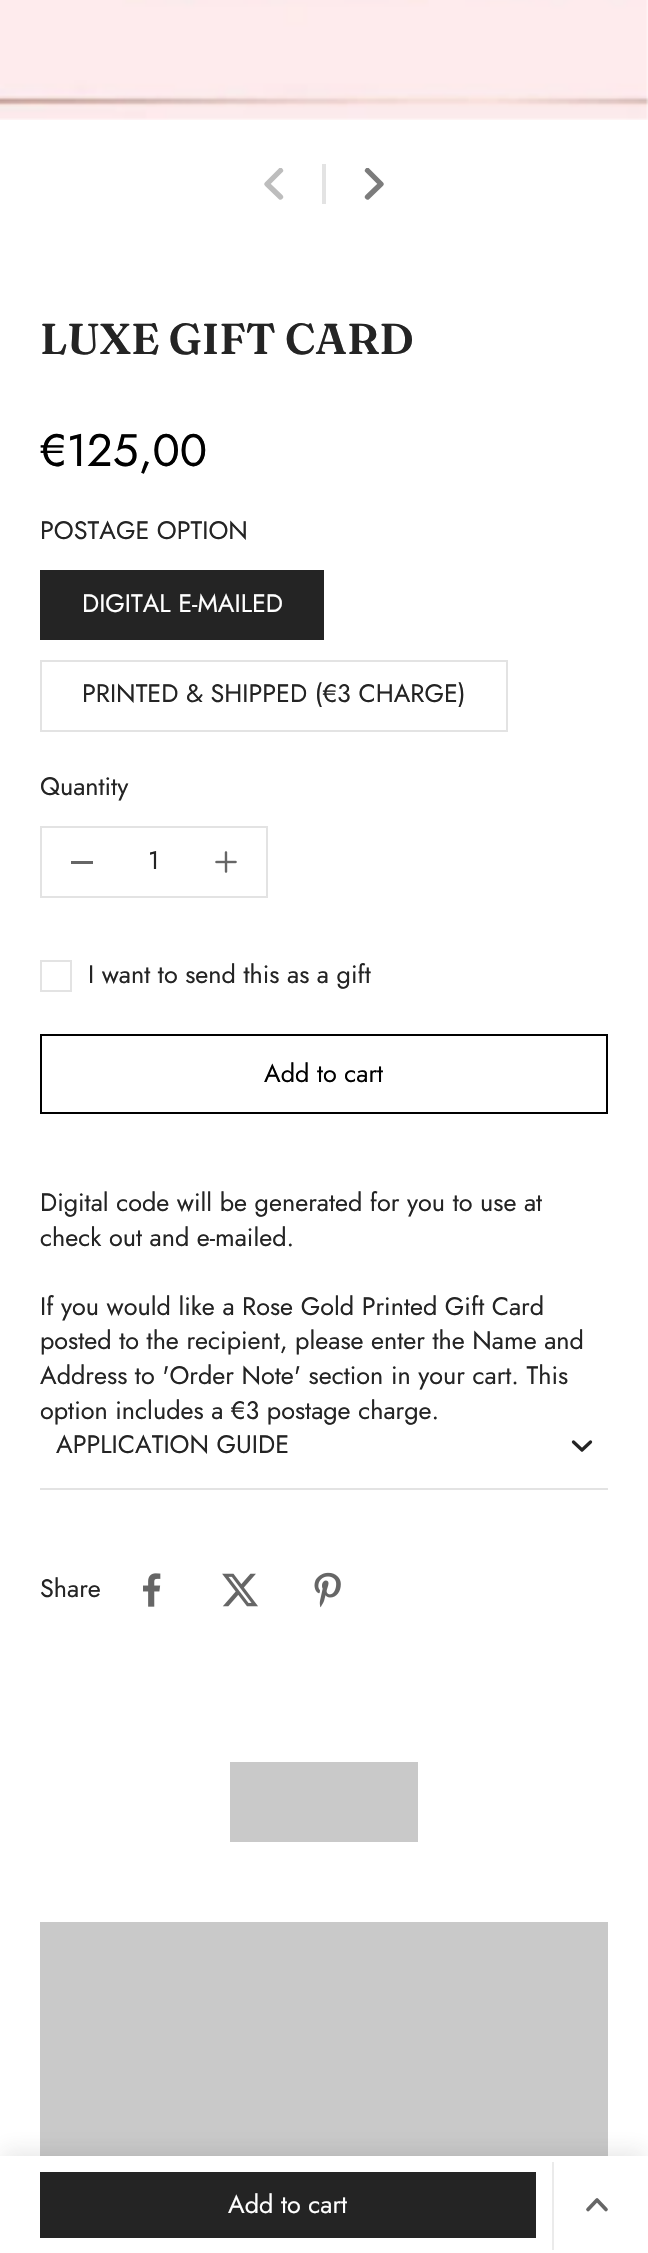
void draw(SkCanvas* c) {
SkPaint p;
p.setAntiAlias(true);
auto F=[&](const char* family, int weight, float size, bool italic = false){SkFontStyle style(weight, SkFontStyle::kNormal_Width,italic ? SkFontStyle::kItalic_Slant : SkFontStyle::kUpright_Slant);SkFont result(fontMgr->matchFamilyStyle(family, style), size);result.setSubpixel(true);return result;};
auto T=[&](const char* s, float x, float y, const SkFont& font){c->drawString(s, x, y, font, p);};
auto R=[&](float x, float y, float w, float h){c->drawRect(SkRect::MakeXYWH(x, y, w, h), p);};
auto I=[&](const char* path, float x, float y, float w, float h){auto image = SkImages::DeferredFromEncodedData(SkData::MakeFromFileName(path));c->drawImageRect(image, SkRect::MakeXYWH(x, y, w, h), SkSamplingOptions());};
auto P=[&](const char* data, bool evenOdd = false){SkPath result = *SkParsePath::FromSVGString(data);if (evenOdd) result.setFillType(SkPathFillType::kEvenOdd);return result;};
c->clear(0xffffffff);
I("1.png",0,0,648,120);
c->save();
c->clipPath(P("M290 168v32h-32v-32z"),true);
p.setStroke(true);
p.setStrokeWidth(5.3);
p.setStrokeCap(SkPaint::kRound_Cap);
p.setStrokeJoin(SkPaint::kRound_Join);
p.setColor(0xffbdbdbd);
c->drawPath(P("M280.5 170.5l-13.5 13.5l13.5 13"),p);
c->restore();
p.setStroke(false);
p.setColor(0xffe3e3e3);
R(322,164,4,40);
c->save();
c->clipPath(P("M358 200v-32h32v32z"),true);
p.setStroke(true);
p.setColor(0xff7c7c7c);
c->drawPath(P("M367.5 197l13.5-13l-13.5-13.5"),p);
c->restore();
auto f1 = F("Fraunces",600,43.25);
p.setStroke(false);
p.setColor(0xff242424);
T("LUXE GIFT CARD",40,354,f1);
auto f2 = F("Jost",400,45.5);
p.setColor(0xff000000);
T("€125,00",40,466,f2);
auto f3 = F("Jost",400,25.2);
p.setColor(0xff242424);
T("POSTAGE OPTION",40,539,f3);
R(40,570,284,70);
p.setColor(0xffffffff);
T("DIGITAL E-MAILED",82,612,f3);
p.setStroke(true);
p.setStrokeWidth(2);
p.setStrokeCap(SkPaint::kButt_Cap);
p.setStrokeJoin(SkPaint::kMiter_Join);
p.setColor(0xffe3e3e3);
c->drawRect(SkRect::MakeXYWH(41,661,466,70),p);
p.setStroke(false);
p.setColor(0xff242424);
T("PRINTED & SHIPPED (€3 CHARGE)",82,702,f3);
T("Quantity",40,795,f3);
p.setStroke(true);
p.setColor(0xffe3e3e3);
c->drawRect(SkRect::MakeXYWH(41,827,226,70),p);
p.setStroke(false);
p.setColor(0xff666666);
R(71,861,22,3);
p.setColor(0xff242424);
T("1",148,869,f3);
I("2.png",215,851,22,22);
p.setStroke(true);
p.setColor(0xffe3e3e3);
c->drawRect(SkRect::MakeXYWH(41,961,30,30),p);
p.setStroke(false);
p.setColor(0xff242424);
T("I want to send this as a gift",88,983,f3);
p.setStroke(true);
p.setColor(0xff000000);
c->drawRect(SkRect::MakeXYWH(41,1035,566,78),p);
p.setStroke(false);
T("Add to cart",264,1082,f3);
p.setColor(0xff242424);
T("Digital code will be generated for you to use at",40,1211,f3);
T("check out and e-mailed.",40,1246,f3);
T("If you would like a Rose Gold Printed Gift Card",40,1315,f3);
T("posted to the recipient, please enter the Name and",40,1349,f3);
T("Address to 'Order Note' section in your cart. This",40,1384,f3);
T("option includes a €3 postage charge.",40,1419,f3);
p.setColor(0xffe3e3e3);
R(40,1488,568,2);
p.setColor(0xff242424);
T("APPLICATION GUIDE",56,1453,f3);
p.setStroke(true);
p.setStrokeWidth(3.3);
p.setStrokeCap(SkPaint::kRound_Cap);
p.setStrokeJoin(SkPaint::kRound_Join);
c->drawPath(P("M573.5 1442l8.5 8l8.5-8"),p);
p.setStroke(false);
T("Share",40,1597,f3);
I("3.png",143,1573,18,34);
I("4.png",222,1573,36,34);
I("5.png",314,1572,27,36);
p.setColor(0xffc9c9c9);
R(40,1922,568,234);
p.setColor(0x1a242424);
p.setMaskFilter(SkMaskFilter::MakeBlur(kNormal_SkBlurStyle, 10));
c->drawRect(SkRect::MakeXYWH(2,2150,644,94),p);
p.setMaskFilter(nullptr);
p.setColor(0xffffffff);
R(0,2156,648,97);
p.setColor(0xff242424);
R(40,2172,496,66);
p.setColor(0xffffffff);
T("Add to cart",228,2213,f3);
p.setColor(0xffebebeb);
R(552,2162,2,88);
p.setStroke(true);
p.setStrokeWidth(3.7);
p.setColor(0xff666666);
c->drawPath(P("M606 2209.5l-9-9.5l-9 9.5"),p);
p.setStroke(false);
p.setColor(0xffc9c9c9);
R(230,1762,188,80);
}
